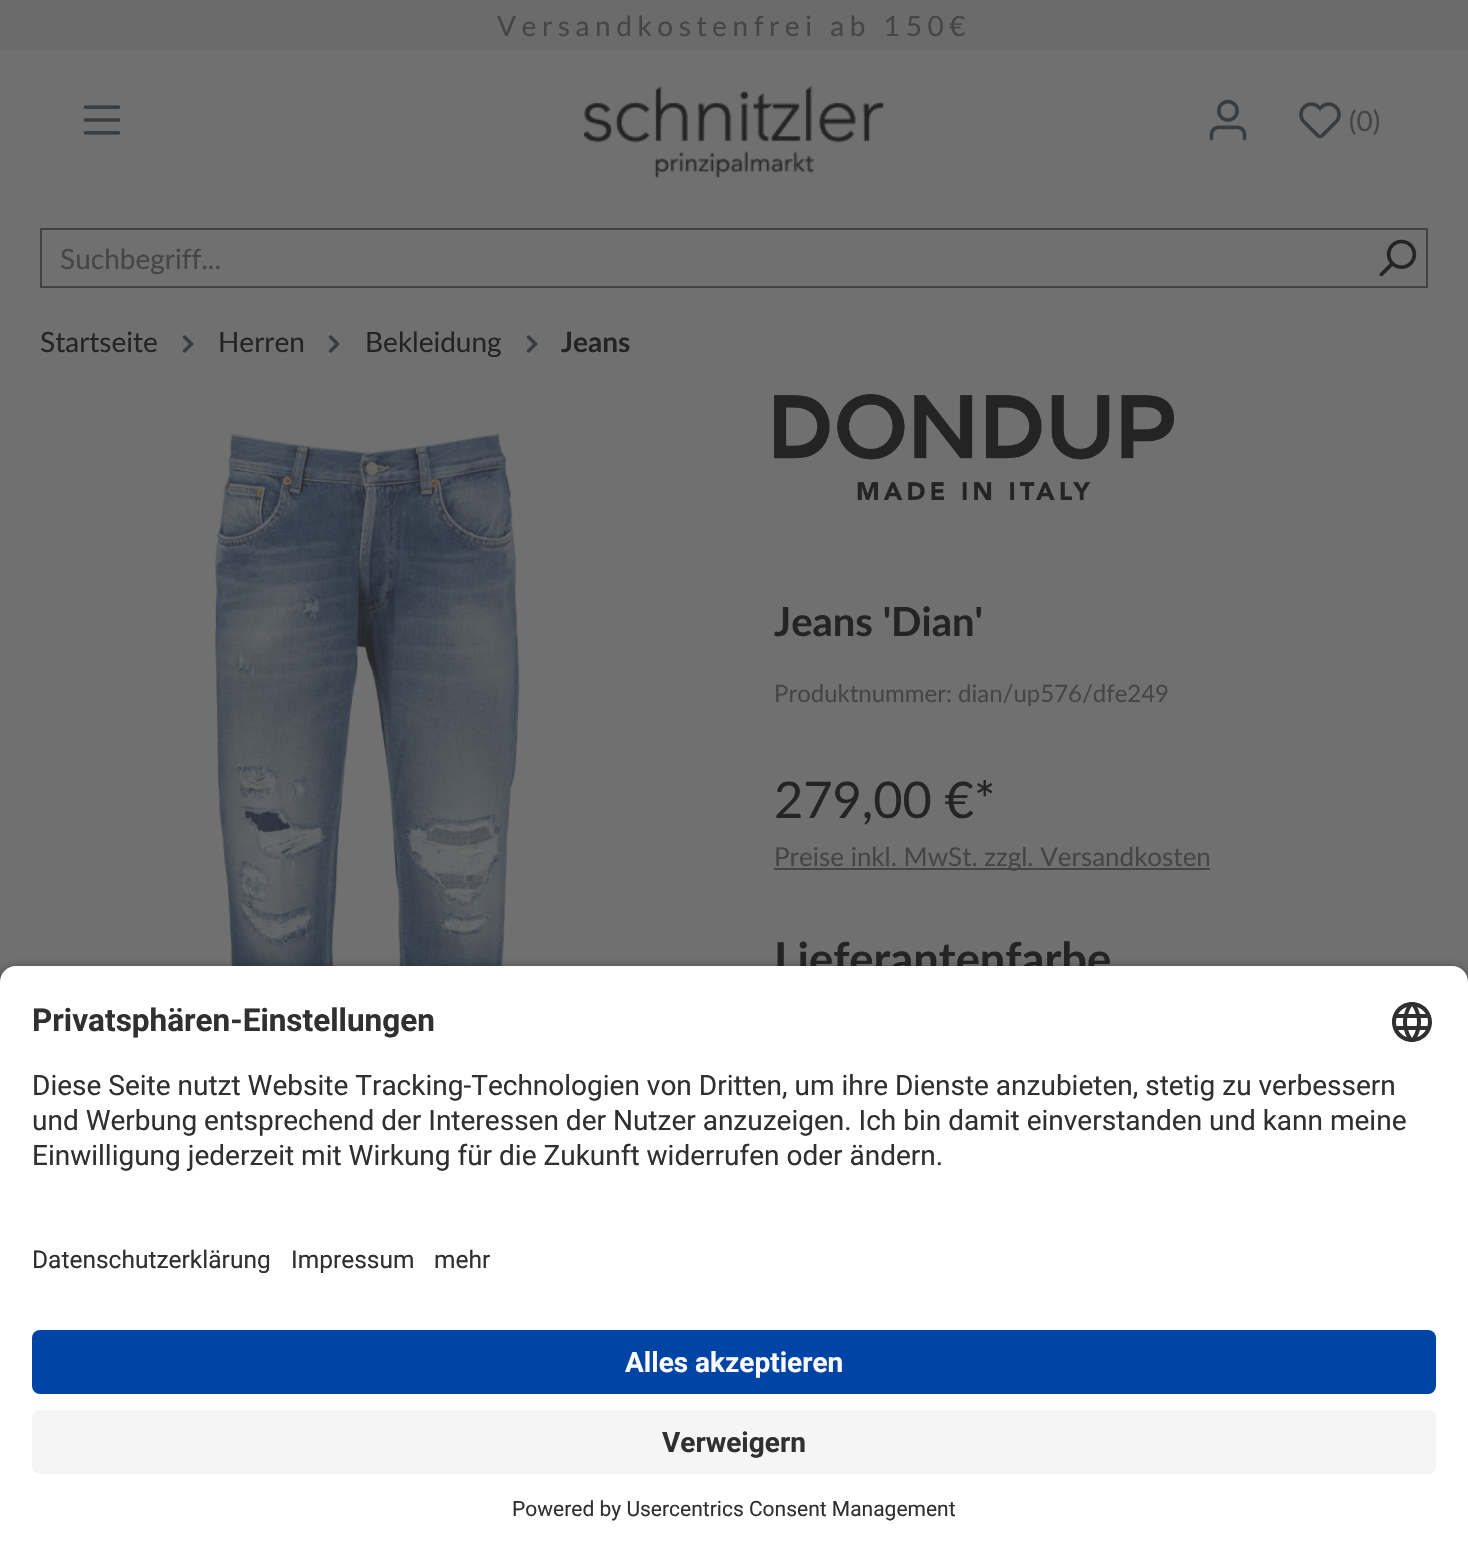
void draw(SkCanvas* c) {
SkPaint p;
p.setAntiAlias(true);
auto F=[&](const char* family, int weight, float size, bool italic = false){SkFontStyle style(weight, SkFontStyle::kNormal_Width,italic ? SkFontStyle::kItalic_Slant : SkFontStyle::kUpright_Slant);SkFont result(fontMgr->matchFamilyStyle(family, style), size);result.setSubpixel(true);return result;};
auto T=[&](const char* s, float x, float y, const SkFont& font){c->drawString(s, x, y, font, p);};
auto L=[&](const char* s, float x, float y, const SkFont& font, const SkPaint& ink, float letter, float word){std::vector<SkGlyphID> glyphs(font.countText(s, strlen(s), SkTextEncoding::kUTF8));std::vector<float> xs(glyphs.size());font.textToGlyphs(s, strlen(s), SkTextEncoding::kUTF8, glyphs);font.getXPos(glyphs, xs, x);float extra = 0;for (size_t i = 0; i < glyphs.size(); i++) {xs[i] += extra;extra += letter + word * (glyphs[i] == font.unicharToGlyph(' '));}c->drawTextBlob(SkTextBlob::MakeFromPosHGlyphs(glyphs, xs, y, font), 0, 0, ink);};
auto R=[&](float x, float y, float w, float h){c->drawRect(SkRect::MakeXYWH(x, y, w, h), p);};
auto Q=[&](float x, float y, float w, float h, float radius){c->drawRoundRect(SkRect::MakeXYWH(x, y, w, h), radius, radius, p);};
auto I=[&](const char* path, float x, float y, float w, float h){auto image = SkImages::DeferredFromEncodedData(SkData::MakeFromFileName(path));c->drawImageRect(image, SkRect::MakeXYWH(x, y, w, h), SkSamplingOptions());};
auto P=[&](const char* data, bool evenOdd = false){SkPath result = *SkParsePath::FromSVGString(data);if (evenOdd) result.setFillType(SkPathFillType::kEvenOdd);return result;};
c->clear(0xff707070);
p.setColor(0xff6b6b6b);
R(0,0,1468,50);
auto f1 = F("Lato",400,28);
p.setColor(0xff454545);
L("Versandkostenfrei ab 150€",497,36,f1,p,5.6,0);
I("1.png",584,82,300,96);
I("2.png",83,105,38,30);
I("3.png",1209,99,38,42);
I("4.png",1299,102,42,37);
T("(0)",1349,131,f1);
p.setColor(0xff424242);
R(40,228,1388,2);
R(40,286,1328,2);
R(40,228,2,60);
p.setColor(0xff454545);
T("Suchbegriff...",60,269,f1);
p.setColor(0xff424242);
R(1426,228,2,60);
R(1366,286,62,2);
I("5.png",1379,239,38,38);
p.setColor(0xff242424);
T("Startseite",40,352,f1);
I("6.png",182,335,12,18);
T("Herren",218,352,f1);
I("6.png",328,335,12,18);
T("Bekleidung",365,352,f1);
I("6.png",526,335,12,18);
auto f2 = F("Lato",700,28);
T("Jeans",561,352,f2);
I("7.png",214,432,306,534);
I("8.png",774,394,400,106);
auto f3 = F("Lato",700,40);
T("Jeans 'Dian'",774,636,f3);
auto f4 = F("Lato",400,24);
p.setColor(0xff454545);
T("Produktnummer: dian/up576/dfe249",774,702,f4);
auto f5 = F("Lato",400,50.5);
p.setColor(0xff242424);
T("279,00 €*",774,818,f5);
p.setColor(0xff454545);
R(774,868,436,2);
auto f6 = F("Lato",400,26);
T("Preise inkl. MwSt. zzgl. Versandkosten",774,866,f6);
auto f7 = F("Lato",700,45.25);
p.setColor(0xff242424);
T("Lieferantenfarbe",774,975,f7);
p.setColor(0xcc000000);
p.setMaskFilter(SkMaskFilter::MakeBlur(kNormal_SkBlurStyle, 7));
c->drawRoundRect(SkRect::MakeXYWH(0,972,1468,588),16,16,p);
p.setMaskFilter(nullptr);
p.setColor(0xffffffff);
c->drawPath(P("M16 966h1436c9 0 16 7 16 16v232h-1468v-232c0-9 7-16 16-16z"),p);
auto f8 = F("Roboto",700,31.5);
p.setColor(0xff303030);
T("Privatsphären-Einstellungen",32,1031,f8);
I("9.png",1392,1002,40,40);
auto f9 = F("Roboto",400,28);
T("Diese Seite nutzt Website Tracking-Technologien von Dritten, um ihre Dienste anzubieten, stetig zu verbessern",32,1095,f9);
T("und Werbung entsprechend der Interessen der Nutzer anzuzeigen. Ich bin damit einverstanden und kann meine",32,1130,f9);
T("Einwilligung jederzeit mit Wirkung für die Zukunft widerrufen oder ändern.",32,1165,f9);
p.setColor(0xffffffff);
R(0,1214,1468,340);
auto f10 = F("Roboto",400,24.5);
p.setColor(0xff303030);
T("Datenschutzerklärung",32,1268,f10);
T("Impressum",291,1268,f10);
T("mehr",434,1268,f10);
p.setColor(0xff0045a5);
Q(32,1330,1404,64,8);
auto f11 = F("Roboto",700,28);
p.setColor(0xfffafafa);
T("Alles akzeptieren",625,1372,f11);
p.setColor(0xfff5f5f5);
Q(32,1410,1404,64,8);
p.setColor(0xff303030);
T("Verweigern",662,1452,f11);
auto f12 = F("Roboto",400,21);
T("Powered by Usercentrics Consent Management",512,1516,f12);
}
